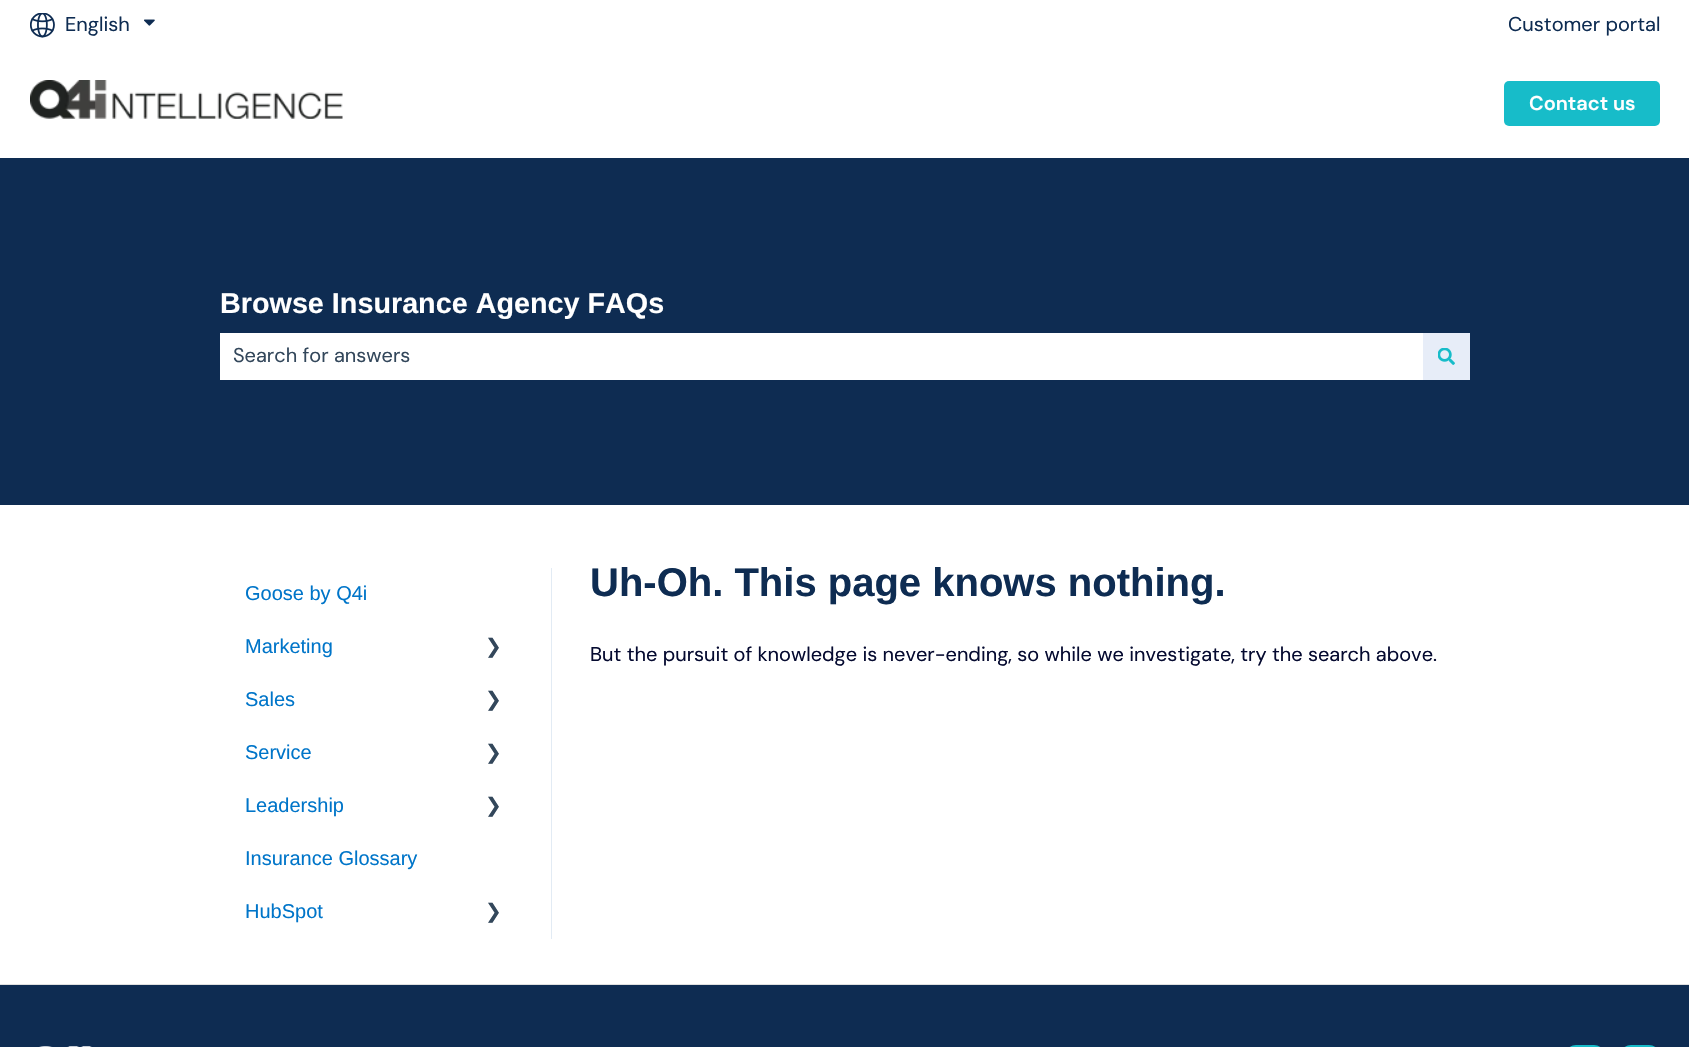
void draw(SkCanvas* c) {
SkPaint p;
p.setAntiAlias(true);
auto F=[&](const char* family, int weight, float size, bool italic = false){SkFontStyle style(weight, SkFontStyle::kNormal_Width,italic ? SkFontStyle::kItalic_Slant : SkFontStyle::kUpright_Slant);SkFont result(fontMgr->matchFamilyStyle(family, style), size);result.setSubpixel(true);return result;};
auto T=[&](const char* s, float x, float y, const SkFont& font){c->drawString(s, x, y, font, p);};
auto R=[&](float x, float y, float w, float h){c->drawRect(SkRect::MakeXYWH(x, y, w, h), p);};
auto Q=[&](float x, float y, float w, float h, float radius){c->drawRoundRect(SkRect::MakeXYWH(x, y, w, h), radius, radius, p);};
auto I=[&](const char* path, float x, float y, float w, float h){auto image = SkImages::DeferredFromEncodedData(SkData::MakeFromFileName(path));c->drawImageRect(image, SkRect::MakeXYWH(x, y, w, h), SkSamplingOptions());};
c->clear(0xffffffff);
I("1.png",30,13,25,25);
auto f1 = F("DM Sans",400,20);
p.setColor(0xff0e2c52);
T("English",65,31,f1);
I("2.png",144,19,11,7);
T("Customer portal",1508,31,f1);
I("3.png",30,80,313,39);
p.setColor(0xff17bcc9);
Q(1504,81,156,45,5);
auto f2 = F("DM Sans",600,20);
p.setColor(0xffffffff);
T("Contact us",1529,110,f2);
p.setColor(0xff0e2c52);
R(0,158,1689,347);
auto f3 = F("Liberation Sans",700,28.75);
p.setColor(0xffffffff);
T("Browse Insurance Agency FAQs",220,313,f3);
R(220,333,1203,47);
p.setColor(0xff33475b);
T("Search for answers",233,362,f1);
p.setColor(0xffe7edf8);
R(1423,333,47,47);
I("4.png",1438,348,17,17);
p.setColor(0xffe2ebf4);
R(551,568,1,371);
auto f4 = F("Liberation Sans",400,20);
p.setColor(0xff0075c9);
T("Goose by Q4i",245,600,f4);
T("Marketing",245,653,f4);
auto f5 = F("DejaVu Sans",400,20);
p.setColor(0xff33475b);
T("❯",485,653,f5);
p.setColor(0xff0075c9);
T("Sales",245,706,f4);
p.setColor(0xff33475b);
T("❯",485,706,f5);
p.setColor(0xff0075c9);
T("Service",245,759,f4);
p.setColor(0xff33475b);
T("❯",485,759,f5);
p.setColor(0xff0075c9);
T("Leadership",245,812,f4);
p.setColor(0xff33475b);
T("❯",485,812,f5);
p.setColor(0xff0075c9);
T("Insurance Glossary",245,865,f4);
T("HubSpot",245,918,f4);
p.setColor(0xff33475b);
T("❯",485,918,f5);
auto f6 = F("Liberation Sans",700,40);
p.setColor(0xff0e2c52);
T("Uh-Oh. This page knows nothing.",590,596,f6);
p.setColor(0xff050a30);
T("But the pursuit of knowledge is never-ending, so while we investigate, try the search above.",590,661,f1);
p.setColor(0xff0e2c52);
R(0,985,1689,62);
p.setColor(0xffe0e0e0);
R(0,984,1689,1);
I("5.png",39,1046,53,1);
p.setColor(0xff17bcc9);
Q(1565,1045,40,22,20);
Q(1620,1045,40,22,20);
}
